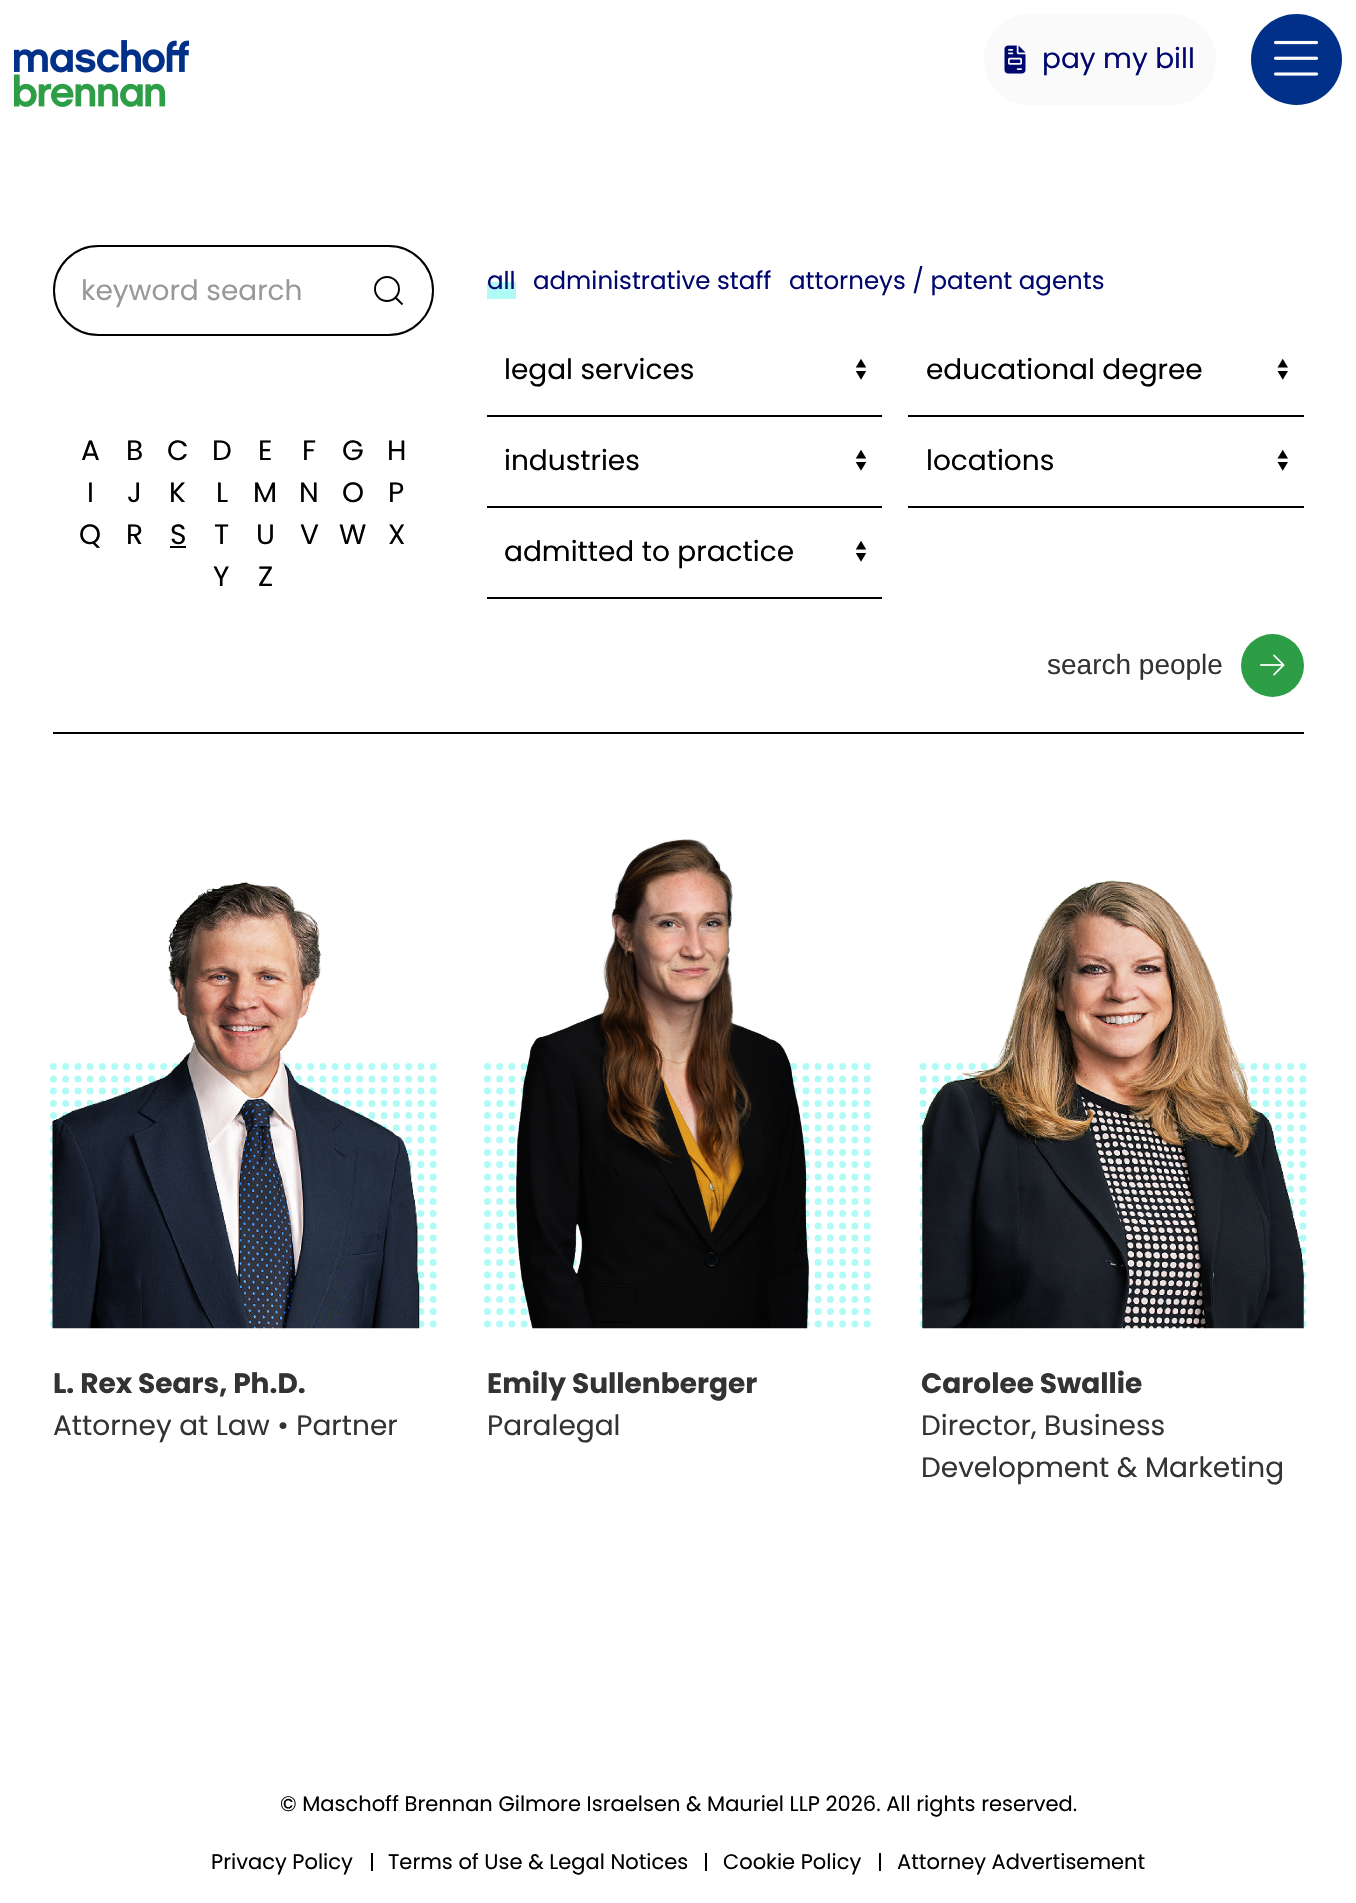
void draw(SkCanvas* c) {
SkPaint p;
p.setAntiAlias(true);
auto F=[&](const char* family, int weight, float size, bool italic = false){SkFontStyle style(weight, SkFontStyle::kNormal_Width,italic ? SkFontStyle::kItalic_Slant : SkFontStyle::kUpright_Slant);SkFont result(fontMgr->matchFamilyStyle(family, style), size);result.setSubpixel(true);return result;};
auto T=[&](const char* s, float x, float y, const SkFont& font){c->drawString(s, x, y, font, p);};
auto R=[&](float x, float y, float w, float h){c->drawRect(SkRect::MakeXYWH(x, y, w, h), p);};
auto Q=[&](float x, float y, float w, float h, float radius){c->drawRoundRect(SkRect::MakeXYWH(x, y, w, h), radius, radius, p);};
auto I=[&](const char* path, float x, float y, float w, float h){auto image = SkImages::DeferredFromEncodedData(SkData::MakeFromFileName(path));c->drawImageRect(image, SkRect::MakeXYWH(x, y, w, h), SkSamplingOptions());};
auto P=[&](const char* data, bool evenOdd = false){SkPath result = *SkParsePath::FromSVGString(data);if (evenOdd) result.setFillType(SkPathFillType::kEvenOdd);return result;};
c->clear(0xffffffff);
I("1.png",14,40,175,67);
p.setColor(0xfffafafa);
Q(984,14,232,91,45.5);
I("2.png",1004,45,22,29);
auto f1 = F("Poppins",400,28);
p.setColor(0xff00076e);
T("pay my bill",1042,68,f1);
p.setColor(0xff003087);
c->drawCircle(1296.5,59.5,45.5,p);
I("3.png",1274,40,45,36);
p.setStroke(true);
p.setStrokeWidth(2);
p.setColor(0xff000000);
c->drawRoundRect(SkRect::MakeXYWH(54,246,379,89),44.5,44.5,p);
p.setStroke(false);
p.setColor(0xff999999);
T("keyword search",81,300,f1);
p.setStroke(true);
p.setStrokeWidth(1.9);
p.setColor(0xff000000);
c->drawCircle(387,289,12,p);
c->drawPath(P("M395.5 297.5l7 7z"),p);
p.setStroke(false);
T("A",81,460,f1);
T("B",126,460,f1);
T("C",167,460,f1);
T("D",212,460,f1);
T("E",258,460,f1);
T("F",302,460,f1);
T("G",342,460,f1);
T("H",387,460,f1);
T("I",87,502,f1);
T("J",127,502,f1);
T("K",169,502,f1);
T("L",216,502,f1);
T("M",253,502,f1);
T("N",299,502,f1);
T("O",342,502,f1);
T("P",388,502,f1);
T("Q",79,544,f1);
T("R",126,544,f1);
T("S",170,544,f1);
R(170,546,16,2);
T("T",214,544,f1);
T("U",256,544,f1);
T("V",300,544,f1);
T("W",339,544,f1);
T("X",388,544,f1);
T("Y",213,586,f1);
T("Z",258,586,f1);
p.setColor(0xffb1fbf6);
R(487,282,29,17);
auto f2 = F("Poppins",400,24.5);
p.setColor(0xff00076e);
T("all",487,289,f2);
T("administrative staff",533,289,f2);
T("attorneys / patent agents",789,289,f2);
I("4.png",855,359,12,21);
p.setColor(0xff000000);
R(487,415,395,2);
T("legal services",504,379,f1);
I("4.png",855,450,12,21);
R(487,506,395,2);
T("industries",504,470,f1);
I("4.png",855,541,12,21);
R(487,597,395,2);
T("admitted to practice",504,561,f1);
I("5.png",1277,358,11,22);
R(908,415,396,2);
T("educational degree",926,379,f1);
I("5.png",1277,449,11,22);
R(908,506,396,2);
T("locations",926,470,f1);
auto f3 = F("Liberation Sans",400,28);
p.setColor(0xff333333);
T("search people",1047,674,f3);
p.setColor(0xff2e9e46);
c->drawCircle(1272.5,665.5,31.5,p);
I("6.png",1260,654,25,22);
p.setColor(0xff000000);
R(53,732,1251,2);
p.setStroke(true);
p.setStrokeWidth(7);
p.setStrokeCap(SkPaint::kRound_Cap);
p.setColor(0xffb1fbf6);
p.setPathEffect(SkDashPathEffect::Make({{0,12.25f}}, 0));
c->drawPath(P("M53.4 1066.6h380.1"),p);
p.setPathEffect(nullptr);
p.setPathEffect(SkDashPathEffect::Make({{0,12.25f}}, 0));
c->drawPath(P("M53.4 1078.9h380.1"),p);
p.setPathEffect(nullptr);
p.setPathEffect(SkDashPathEffect::Make({{0,12.25f}}, 0));
c->drawPath(P("M53.4 1091.1h380.1"),p);
p.setPathEffect(nullptr);
p.setPathEffect(SkDashPathEffect::Make({{0,12.25f}}, 0));
c->drawPath(P("M53.4 1103.4h380.1"),p);
p.setPathEffect(nullptr);
p.setPathEffect(SkDashPathEffect::Make({{0,12.25f}}, 0));
c->drawPath(P("M53.4 1115.6h380.1"),p);
p.setPathEffect(nullptr);
p.setPathEffect(SkDashPathEffect::Make({{0,12.25f}}, 0));
c->drawPath(P("M53.4 1127.9h380.1"),p);
p.setPathEffect(nullptr);
p.setPathEffect(SkDashPathEffect::Make({{0,12.25f}}, 0));
c->drawPath(P("M53.4 1140.1h380.1"),p);
p.setPathEffect(nullptr);
p.setPathEffect(SkDashPathEffect::Make({{0,12.25f}}, 0));
c->drawPath(P("M53.4 1152.4h380.1"),p);
p.setPathEffect(nullptr);
p.setPathEffect(SkDashPathEffect::Make({{0,12.25f}}, 0));
c->drawPath(P("M53.4 1164.6h380.1"),p);
p.setPathEffect(nullptr);
p.setPathEffect(SkDashPathEffect::Make({{0,12.25f}}, 0));
c->drawPath(P("M53.4 1176.9h380.1"),p);
p.setPathEffect(nullptr);
p.setPathEffect(SkDashPathEffect::Make({{0,12.25f}}, 0));
c->drawPath(P("M53.4 1189.1h380.1"),p);
p.setPathEffect(nullptr);
p.setPathEffect(SkDashPathEffect::Make({{0,12.25f}}, 0));
c->drawPath(P("M53.4 1201.4h380.1"),p);
p.setPathEffect(nullptr);
p.setPathEffect(SkDashPathEffect::Make({{0,12.25f}}, 0));
c->drawPath(P("M53.4 1213.6h380.1"),p);
p.setPathEffect(nullptr);
p.setPathEffect(SkDashPathEffect::Make({{0,12.25f}}, 0));
c->drawPath(P("M53.4 1225.9h380.1"),p);
p.setPathEffect(nullptr);
p.setPathEffect(SkDashPathEffect::Make({{0,12.25f}}, 0));
c->drawPath(P("M53.4 1238.1h380.1"),p);
p.setPathEffect(nullptr);
p.setPathEffect(SkDashPathEffect::Make({{0,12.25f}}, 0));
c->drawPath(P("M53.4 1250.4h380.1"),p);
p.setPathEffect(nullptr);
p.setPathEffect(SkDashPathEffect::Make({{0,12.25f}}, 0));
c->drawPath(P("M53.4 1262.6h380.1"),p);
p.setPathEffect(nullptr);
p.setPathEffect(SkDashPathEffect::Make({{0,12.25f}}, 0));
c->drawPath(P("M53.4 1274.9h380.1"),p);
p.setPathEffect(nullptr);
p.setPathEffect(SkDashPathEffect::Make({{0,12.25f}}, 0));
c->drawPath(P("M53.4 1287.1h380.1"),p);
p.setPathEffect(nullptr);
p.setPathEffect(SkDashPathEffect::Make({{0,12.25f}}, 0));
c->drawPath(P("M53.4 1299.4h380.1"),p);
p.setPathEffect(nullptr);
p.setPathEffect(SkDashPathEffect::Make({{0,12.25f}}, 0));
c->drawPath(P("M53.4 1311.6h380.1"),p);
p.setPathEffect(nullptr);
p.setPathEffect(SkDashPathEffect::Make({{0,12.25f}}, 0));
c->drawPath(P("M53.4 1323.9h380.1"),p);
p.setPathEffect(nullptr);
I("7.png",52,882,368,447);
auto f4 = F("Poppins",700,28);
p.setStroke(false);
p.setColor(0xff333333);
T("L. Rex Sears, Ph.D.",53,1393,f4);
T("Attorney at Law • Partner",53,1435,f1);
p.setStroke(true);
p.setColor(0xffb1fbf6);
p.setPathEffect(SkDashPathEffect::Make({{0,12.25f}}, 0));
c->drawPath(P("M487.4 1066.6h380.1"),p);
p.setPathEffect(nullptr);
p.setPathEffect(SkDashPathEffect::Make({{0,12.25f}}, 0));
c->drawPath(P("M487.4 1078.9h380.1"),p);
p.setPathEffect(nullptr);
p.setPathEffect(SkDashPathEffect::Make({{0,12.25f}}, 0));
c->drawPath(P("M487.4 1091.1h380.1"),p);
p.setPathEffect(nullptr);
p.setPathEffect(SkDashPathEffect::Make({{0,12.25f}}, 0));
c->drawPath(P("M487.4 1103.4h380.1"),p);
p.setPathEffect(nullptr);
p.setPathEffect(SkDashPathEffect::Make({{0,12.25f}}, 0));
c->drawPath(P("M487.4 1115.6h380.1"),p);
p.setPathEffect(nullptr);
p.setPathEffect(SkDashPathEffect::Make({{0,12.25f}}, 0));
c->drawPath(P("M487.4 1127.9h380.1"),p);
p.setPathEffect(nullptr);
p.setPathEffect(SkDashPathEffect::Make({{0,12.25f}}, 0));
c->drawPath(P("M487.4 1140.1h380.1"),p);
p.setPathEffect(nullptr);
p.setPathEffect(SkDashPathEffect::Make({{0,12.25f}}, 0));
c->drawPath(P("M487.4 1152.4h380.1"),p);
p.setPathEffect(nullptr);
p.setPathEffect(SkDashPathEffect::Make({{0,12.25f}}, 0));
c->drawPath(P("M487.4 1164.6h380.1"),p);
p.setPathEffect(nullptr);
p.setPathEffect(SkDashPathEffect::Make({{0,12.25f}}, 0));
c->drawPath(P("M487.4 1176.9h380.1"),p);
p.setPathEffect(nullptr);
p.setPathEffect(SkDashPathEffect::Make({{0,12.25f}}, 0));
c->drawPath(P("M487.4 1189.1h380.1"),p);
p.setPathEffect(nullptr);
p.setPathEffect(SkDashPathEffect::Make({{0,12.25f}}, 0));
c->drawPath(P("M487.4 1201.4h380.1"),p);
p.setPathEffect(nullptr);
p.setPathEffect(SkDashPathEffect::Make({{0,12.25f}}, 0));
c->drawPath(P("M487.4 1213.6h380.1"),p);
p.setPathEffect(nullptr);
p.setPathEffect(SkDashPathEffect::Make({{0,12.25f}}, 0));
c->drawPath(P("M487.4 1225.9h380.1"),p);
p.setPathEffect(nullptr);
p.setPathEffect(SkDashPathEffect::Make({{0,12.25f}}, 0));
c->drawPath(P("M487.4 1238.1h380.1"),p);
p.setPathEffect(nullptr);
p.setPathEffect(SkDashPathEffect::Make({{0,12.25f}}, 0));
c->drawPath(P("M487.4 1250.4h380.1"),p);
p.setPathEffect(nullptr);
p.setPathEffect(SkDashPathEffect::Make({{0,12.25f}}, 0));
c->drawPath(P("M487.4 1262.6h380.1"),p);
p.setPathEffect(nullptr);
p.setPathEffect(SkDashPathEffect::Make({{0,12.25f}}, 0));
c->drawPath(P("M487.4 1274.9h380.1"),p);
p.setPathEffect(nullptr);
p.setPathEffect(SkDashPathEffect::Make({{0,12.25f}}, 0));
c->drawPath(P("M487.4 1287.1h380.1"),p);
p.setPathEffect(nullptr);
p.setPathEffect(SkDashPathEffect::Make({{0,12.25f}}, 0));
c->drawPath(P("M487.4 1299.4h380.1"),p);
p.setPathEffect(nullptr);
p.setPathEffect(SkDashPathEffect::Make({{0,12.25f}}, 0));
c->drawPath(P("M487.4 1311.6h380.1"),p);
p.setPathEffect(nullptr);
p.setPathEffect(SkDashPathEffect::Make({{0,12.25f}}, 0));
c->drawPath(P("M487.4 1323.9h380.1"),p);
p.setPathEffect(nullptr);
I("8.png",516,839,293,490);
p.setStroke(false);
p.setColor(0xff333333);
T("Emily Sullenberger",487,1393,f4);
T("Paralegal",487,1435,f1);
p.setStroke(true);
p.setColor(0xffb1fbf6);
p.setPathEffect(SkDashPathEffect::Make({{0,12.25f}}, 0));
c->drawPath(P("M923.1 1066.6h380.1"),p);
p.setPathEffect(nullptr);
p.setPathEffect(SkDashPathEffect::Make({{0,12.25f}}, 0));
c->drawPath(P("M923.1 1078.9h380.1"),p);
p.setPathEffect(nullptr);
p.setPathEffect(SkDashPathEffect::Make({{0,12.25f}}, 0));
c->drawPath(P("M923.1 1091.1h380.1"),p);
p.setPathEffect(nullptr);
p.setPathEffect(SkDashPathEffect::Make({{0,12.25f}}, 0));
c->drawPath(P("M923.1 1103.4h380.1"),p);
p.setPathEffect(nullptr);
p.setPathEffect(SkDashPathEffect::Make({{0,12.25f}}, 0));
c->drawPath(P("M923.1 1115.6h380.1"),p);
p.setPathEffect(nullptr);
p.setPathEffect(SkDashPathEffect::Make({{0,12.25f}}, 0));
c->drawPath(P("M923.1 1127.9h380.1"),p);
p.setPathEffect(nullptr);
p.setPathEffect(SkDashPathEffect::Make({{0,12.25f}}, 0));
c->drawPath(P("M923.1 1140.1h380.1"),p);
p.setPathEffect(nullptr);
p.setPathEffect(SkDashPathEffect::Make({{0,12.25f}}, 0));
c->drawPath(P("M923.1 1152.4h380.1"),p);
p.setPathEffect(nullptr);
p.setPathEffect(SkDashPathEffect::Make({{0,12.25f}}, 0));
c->drawPath(P("M923.1 1164.6h380.1"),p);
p.setPathEffect(nullptr);
p.setPathEffect(SkDashPathEffect::Make({{0,12.25f}}, 0));
c->drawPath(P("M923.1 1176.9h380.1"),p);
p.setPathEffect(nullptr);
p.setPathEffect(SkDashPathEffect::Make({{0,12.25f}}, 0));
c->drawPath(P("M923.1 1189.1h380.1"),p);
p.setPathEffect(nullptr);
p.setPathEffect(SkDashPathEffect::Make({{0,12.25f}}, 0));
c->drawPath(P("M923.1 1201.4h380.1"),p);
p.setPathEffect(nullptr);
p.setPathEffect(SkDashPathEffect::Make({{0,12.25f}}, 0));
c->drawPath(P("M923.1 1213.6h380.1"),p);
p.setPathEffect(nullptr);
p.setPathEffect(SkDashPathEffect::Make({{0,12.25f}}, 0));
c->drawPath(P("M923.1 1225.9h380.1"),p);
p.setPathEffect(nullptr);
p.setPathEffect(SkDashPathEffect::Make({{0,12.25f}}, 0));
c->drawPath(P("M923.1 1238.1h380.1"),p);
p.setPathEffect(nullptr);
p.setPathEffect(SkDashPathEffect::Make({{0,12.25f}}, 0));
c->drawPath(P("M923.1 1250.4h380.1"),p);
p.setPathEffect(nullptr);
p.setPathEffect(SkDashPathEffect::Make({{0,12.25f}}, 0));
c->drawPath(P("M923.1 1262.6h380.1"),p);
p.setPathEffect(nullptr);
p.setPathEffect(SkDashPathEffect::Make({{0,12.25f}}, 0));
c->drawPath(P("M923.1 1274.9h380.1"),p);
p.setPathEffect(nullptr);
p.setPathEffect(SkDashPathEffect::Make({{0,12.25f}}, 0));
c->drawPath(P("M923.1 1287.1h380.1"),p);
p.setPathEffect(nullptr);
p.setPathEffect(SkDashPathEffect::Make({{0,12.25f}}, 0));
c->drawPath(P("M923.1 1299.4h380.1"),p);
p.setPathEffect(nullptr);
p.setPathEffect(SkDashPathEffect::Make({{0,12.25f}}, 0));
c->drawPath(P("M923.1 1311.6h380.1"),p);
p.setPathEffect(nullptr);
p.setPathEffect(SkDashPathEffect::Make({{0,12.25f}}, 0));
c->drawPath(P("M923.1 1323.9h380.1"),p);
p.setPathEffect(nullptr);
I("9.png",922,880,382,449);
p.setStroke(false);
p.setColor(0xff333333);
T("Carolee Swallie",921,1393,f4);
T("Director, Business",921,1435,f1);
T("Development & Marketing",921,1477,f1);
auto f5 = F("Poppins",400,21);
p.setColor(0xff000000);
T("© Maschoff Brennan Gilmore Israelsen & Mauriel LLP 2026. All rights reserved.",280,1811,f5);
T("Privacy Policy",211,1869,f5);
R(371,1853,2,18);
T("Terms of Use & Legal Notices",388,1869,f5);
R(705,1853,2,18);
T("Cookie Policy",723,1869,f5);
R(879,1853,2,18);
T("Attorney Advertisement",897,1869,f5);
}
